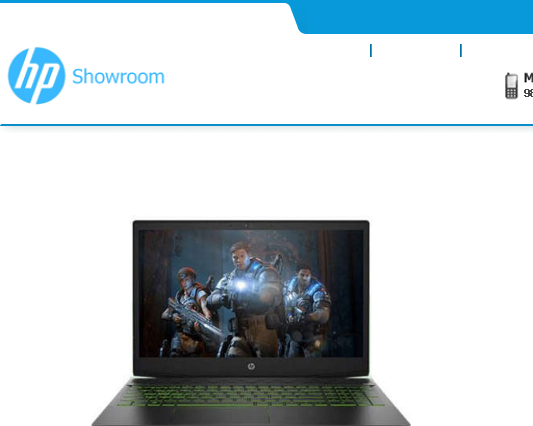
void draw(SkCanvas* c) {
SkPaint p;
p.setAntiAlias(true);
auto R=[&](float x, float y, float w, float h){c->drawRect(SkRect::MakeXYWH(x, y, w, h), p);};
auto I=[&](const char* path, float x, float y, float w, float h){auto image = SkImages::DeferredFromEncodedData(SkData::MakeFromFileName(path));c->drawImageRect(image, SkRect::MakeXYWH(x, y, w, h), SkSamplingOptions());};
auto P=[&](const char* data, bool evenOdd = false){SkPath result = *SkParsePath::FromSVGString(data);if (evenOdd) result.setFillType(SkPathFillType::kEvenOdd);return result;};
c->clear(0xffffffff);
p.setColor(0xff0899da);
R(0,0,282,3);
R(307,0,226,34);
I("1.png",282,0,25,34);
I("2.png",370,44,2,13);
I("2.png",460,44,2,13);
I("3.png",7,47,158,58);
I("4.png",505,72,28,28);
c->drawPath(P("M2 124h531c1 0 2 1 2 2h-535c0-1 1-2 2-2z"),p);
I("5.png",0,124,533,2);
I("6.png",0,126,533,7);
I("7.png",91,215,320,211);
}
